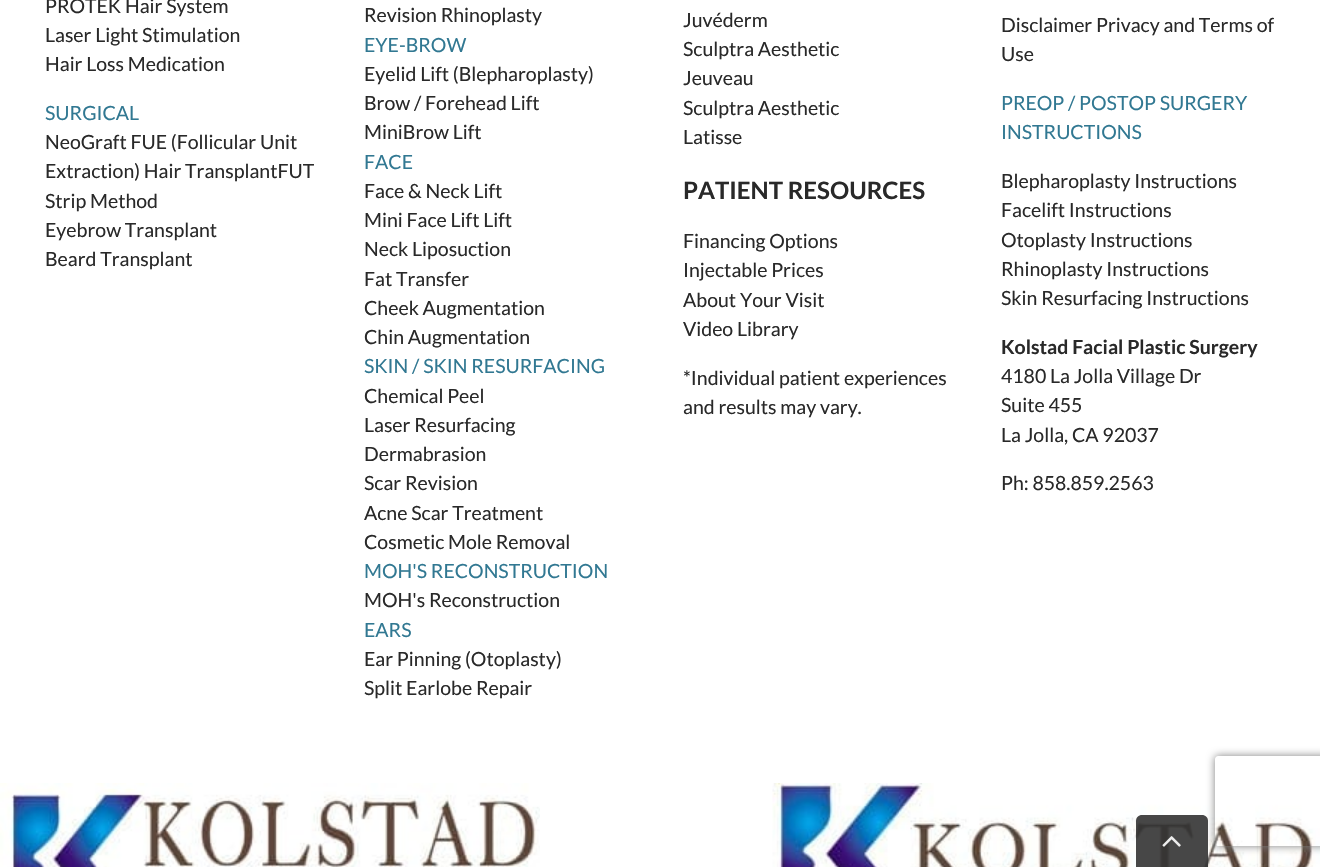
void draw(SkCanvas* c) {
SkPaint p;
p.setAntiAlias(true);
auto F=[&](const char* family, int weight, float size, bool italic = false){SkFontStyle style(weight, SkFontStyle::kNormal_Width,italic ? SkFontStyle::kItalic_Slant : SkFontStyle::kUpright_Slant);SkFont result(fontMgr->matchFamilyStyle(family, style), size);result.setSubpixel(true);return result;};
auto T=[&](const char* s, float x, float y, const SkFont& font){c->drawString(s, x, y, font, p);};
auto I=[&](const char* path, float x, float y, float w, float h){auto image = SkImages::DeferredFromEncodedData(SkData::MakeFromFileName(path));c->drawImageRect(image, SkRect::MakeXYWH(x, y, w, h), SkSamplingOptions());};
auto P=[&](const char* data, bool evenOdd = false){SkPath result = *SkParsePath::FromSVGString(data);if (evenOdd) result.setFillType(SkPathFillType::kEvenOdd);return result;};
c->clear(0xffffffff);
auto f1 = F("Lato",400,19.5);
p.setColor(0xff292929);
T("PROTEK Hair System",45,13,f1);
T("Laser Light Stimulation",45,42,f1);
T("Hair Loss Medication",45,71,f1);
p.setColor(0xff317892);
T("SURGICAL",45,120,f1);
p.setColor(0xff292929);
T("NeoGraft FUE (Follicular Unit",45,149,f1);
T("Extraction) Hair TransplantFUT",45,178,f1);
T("Strip Method",45,208,f1);
T("Eyebrow Transplant",45,237,f1);
T("Beard Transplant",45,266,f1);
T("Revision Rhinoplasty",364,22,f1);
p.setColor(0xff317892);
T("EYE-BROW",364,52,f1);
p.setColor(0xff292929);
T("Eyelid Lift (Blepharoplasty)",364,81,f1);
T("Brow / Forehead Lift",364,110,f1);
T("MiniBrow Lift",364,139,f1);
p.setColor(0xff317892);
T("FACE",364,169,f1);
p.setColor(0xff292929);
T("Face & Neck Lift",364,198,f1);
T("Mini Face Lift Lift",364,227,f1);
T("Neck Liposuction",364,256,f1);
T("Fat Transfer",364,286,f1);
T("Cheek Augmentation",364,315,f1);
T("Chin Augmentation",364,344,f1);
p.setColor(0xff317892);
T("SKIN / SKIN RESURFACING",364,373,f1);
p.setColor(0xff292929);
T("Chemical Peel",364,403,f1);
T("Laser Resurfacing",364,432,f1);
T("Dermabrasion",364,461,f1);
T("Scar Revision",364,490,f1);
T("Acne Scar Treatment",364,520,f1);
T("Cosmetic Mole Removal",364,549,f1);
p.setColor(0xff317892);
T("MOH'S RECONSTRUCTION",364,578,f1);
p.setColor(0xff292929);
T("MOH's Reconstruction",364,607,f1);
p.setColor(0xff317892);
T("EARS",364,637,f1);
p.setColor(0xff292929);
T("Ear Pinning (Otoplasty)",364,666,f1);
T("Split Earlobe Repair",364,695,f1);
T("Juvéderm",683,27,f1);
T("Sculptra Aesthetic",683,56,f1);
T("Jeuveau",683,85,f1);
T("Sculptra Aesthetic",683,115,f1);
T("Latisse",683,144,f1);
auto f2 = F("Lato",700,24);
T("PATIENT RESOURCES",683,199,f2);
T("Financing Options",683,248,f1);
T("Injectable Prices",683,277,f1);
T("About Your Visit",683,307,f1);
T("Video Library",683,336,f1);
T("*Individual patient experiences",683,385,f1);
T("and results may vary.",683,414,f1);
T("Disclaimer Privacy and Terms of",1001,32,f1);
T("Use",1001,61,f1);
p.setColor(0xff317892);
T("PREOP / POSTOP SURGERY",1001,110,f1);
T("INSTRUCTIONS",1001,139,f1);
p.setColor(0xff292929);
T("Blepharoplasty Instructions",1001,188,f1);
T("Facelift Instructions",1001,217,f1);
T("Otoplasty Instructions",1001,247,f1);
T("Rhinoplasty Instructions",1001,276,f1);
T("Skin Resurfacing Instructions",1001,305,f1);
auto f3 = F("Lato",700,19.5);
T("Kolstad Facial Plastic Surgery",1001,354,f3);
T("4180 La Jolla Village Dr",1001,383,f1);
T("Suite 455",1001,412,f1);
T("La Jolla, CA 92037",1001,442,f1);
T("Ph: 858.859.2563",1001,490,f1);
I("2.png",772,783,548,84);
c->save();
c->clipPath(P("M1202 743h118v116h-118zm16 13h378c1.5 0 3 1.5 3 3v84c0 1.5-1.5 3-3 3h-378c-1.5 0-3-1.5-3-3v-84c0-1.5 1.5-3 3-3z",true),true);
p.setColor(0xff808080);
p.setMaskFilter(SkMaskFilter::MakeBlur(kNormal_SkBlurStyle, 4));
c->drawRoundRect(SkRect::MakeXYWH(1215,756,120,90),3,3,p);
p.setMaskFilter(nullptr);
c->restore();
I("1.png",0,783,540,84);
p.setColor(0xe6333333);
c->drawPath(P("M1142 815h60c3.5 0 6 2.5 6 6v46h-72v-46c0-3.5 2.5-6 6-6z"),p);
I("3.png",1162,836,19,11);
}
